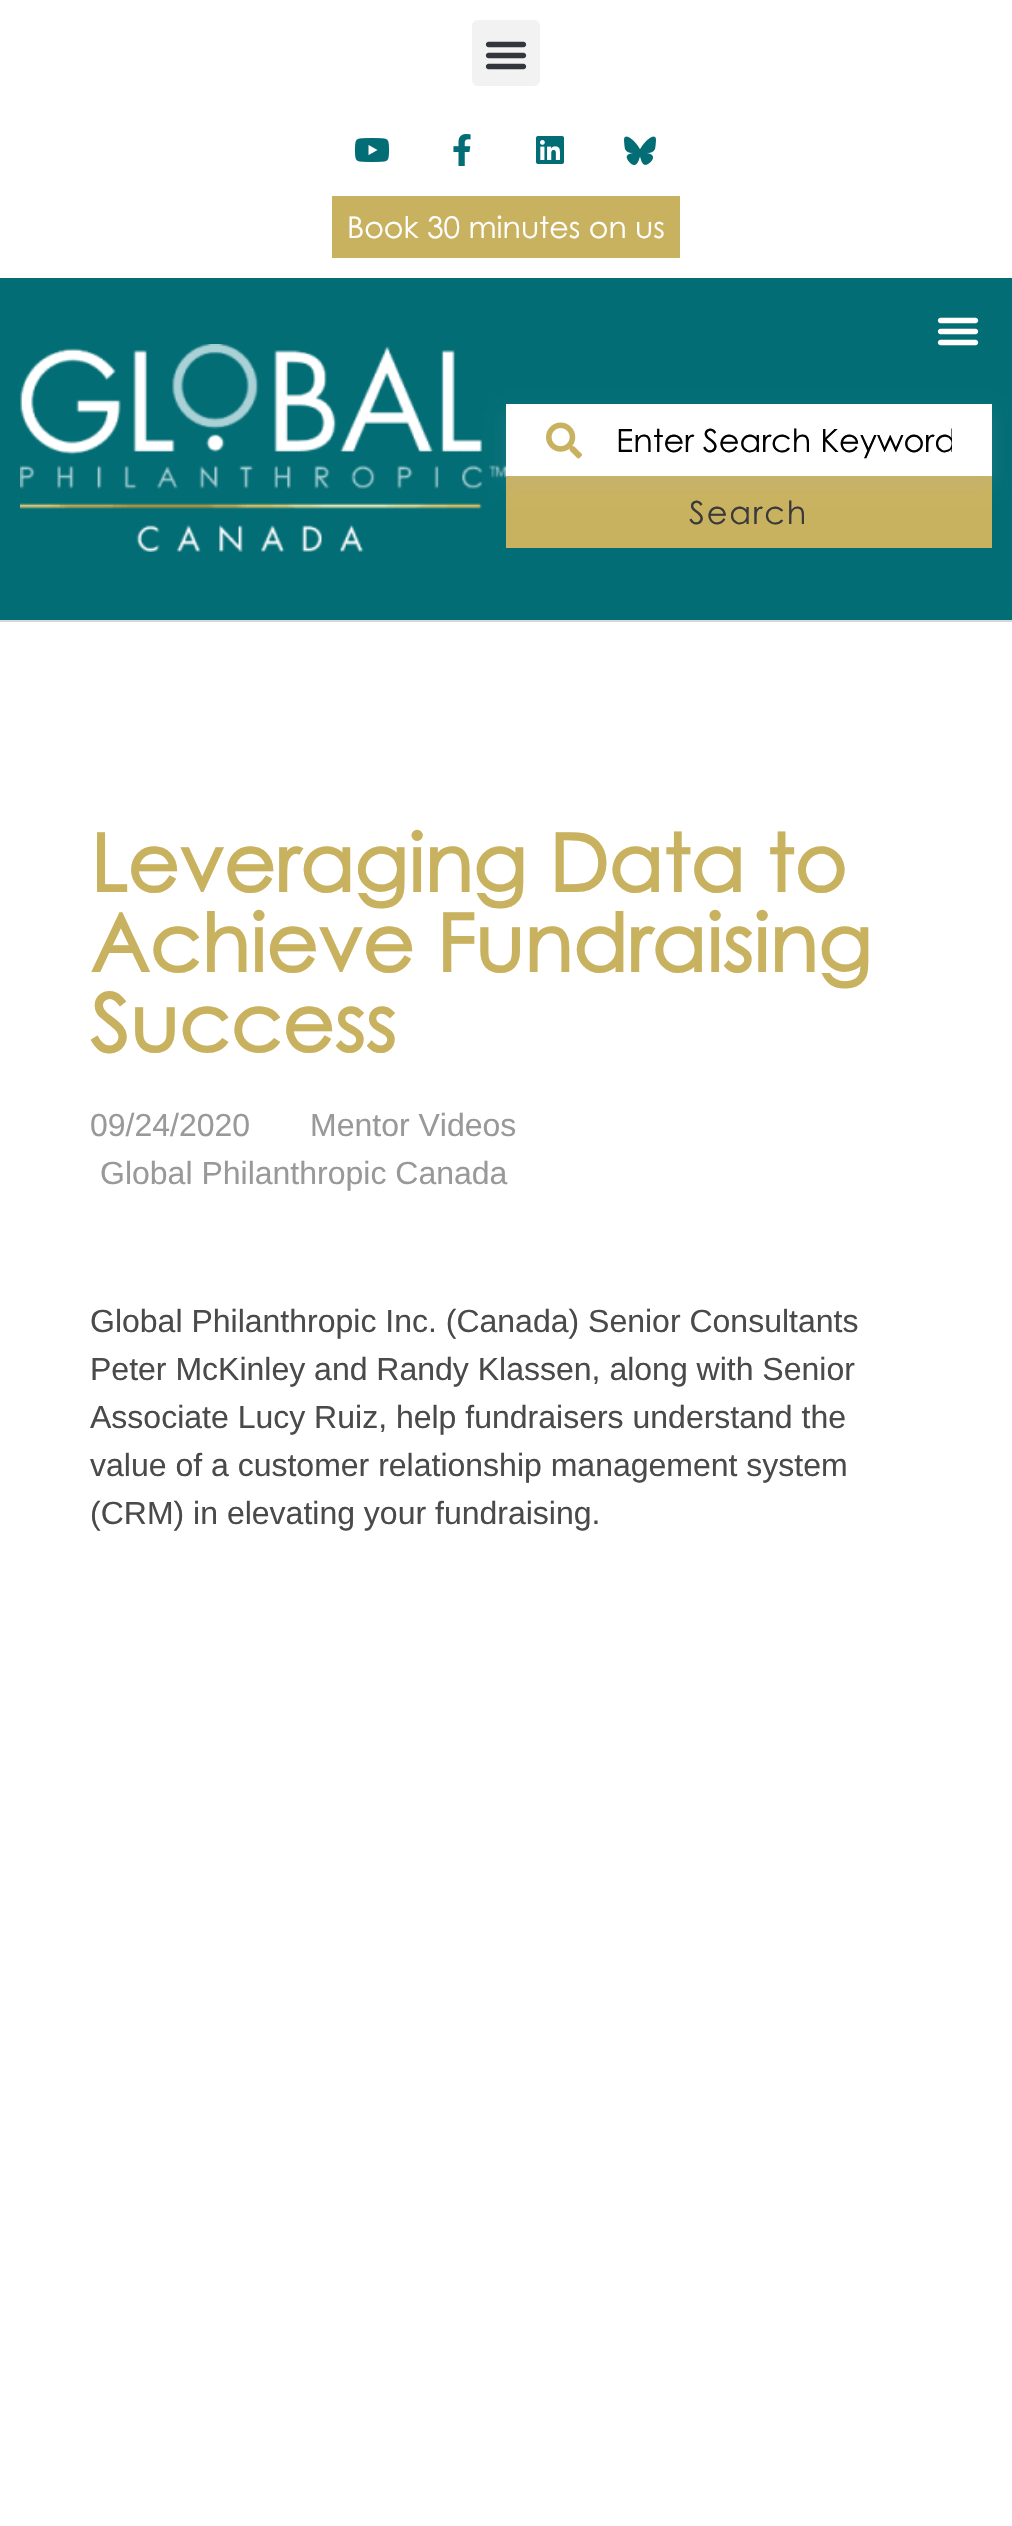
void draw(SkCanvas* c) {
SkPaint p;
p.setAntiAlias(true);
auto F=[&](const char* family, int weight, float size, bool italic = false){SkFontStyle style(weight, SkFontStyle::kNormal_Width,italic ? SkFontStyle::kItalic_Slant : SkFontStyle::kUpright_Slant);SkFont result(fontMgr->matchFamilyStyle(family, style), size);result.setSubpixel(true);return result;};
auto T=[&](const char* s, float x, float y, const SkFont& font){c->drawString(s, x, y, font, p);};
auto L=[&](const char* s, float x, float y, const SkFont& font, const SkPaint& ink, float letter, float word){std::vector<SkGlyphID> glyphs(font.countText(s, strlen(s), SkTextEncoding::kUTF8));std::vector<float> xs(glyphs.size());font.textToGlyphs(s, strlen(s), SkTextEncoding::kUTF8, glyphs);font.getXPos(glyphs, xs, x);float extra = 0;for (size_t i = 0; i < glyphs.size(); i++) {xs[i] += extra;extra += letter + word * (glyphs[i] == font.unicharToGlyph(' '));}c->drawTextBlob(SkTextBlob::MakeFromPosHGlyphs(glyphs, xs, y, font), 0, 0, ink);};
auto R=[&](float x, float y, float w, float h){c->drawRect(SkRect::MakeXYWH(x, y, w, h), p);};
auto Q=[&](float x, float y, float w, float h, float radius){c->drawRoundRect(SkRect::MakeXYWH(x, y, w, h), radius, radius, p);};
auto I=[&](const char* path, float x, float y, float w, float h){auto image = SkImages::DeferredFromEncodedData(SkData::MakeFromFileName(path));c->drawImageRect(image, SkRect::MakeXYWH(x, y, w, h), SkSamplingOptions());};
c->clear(0xffffffff);
p.setColor(0xfff2f2f2);
Q(472,20,68,66,6);
I("1.png",485,41,42,29);
I("2.png",354,138,36,24);
I("3.png",453,134,18,32);
I("4.png",536,136,28,28);
I("5.png",624,136,32,29);
p.setColor(0xffc9b25f);
R(332,196,348,62);
auto f1 = F("Century Gothic",400,30);
p.setColor(0xffffffff);
T("Book 30 minutes on us",347,238,f1);
p.setColor(0xff026d75);
R(0,278,1012,342);
p.setColor(0xffd8d8d8);
R(0,620,1012,2);
I("6.png",20,344,486,208);
I("7.png",937,317,42,29);
p.setColor(0xffc9b25f);
R(506,476,486,72);
p.setColor(0x26a5aed5);
p.setMaskFilter(SkMaskFilter::MakeBlur(kNormal_SkBlurStyle, 8));
c->drawRect(SkRect::MakeXYWH(506,412,486,72),p);
p.setMaskFilter(nullptr);
p.setColor(0xffffffff);
R(506,404,486,72);
I("8.png",546,422,36,37);
c->save();
c->clipRect(SkRect::MakeXYWH(616,420,336,40));
auto f2 = F("Century Gothic",400,32);
p.setColor(0xff000000);
T("Enter Search Keyword",616,452,f2);
c->restore();
p.setColor(0xff3a3a3c);
L("Search",689,524,f2,p,1.75,0);
auto f3 = F("Century Gothic",700,80);
p.setColor(0xffc9b25f);
T("Leveraging Data to",90,892,f3);
T("Achieve Fundraising",90,972,f3);
T("Success",90,1052,f3);
auto f4 = F("Liberation Sans",400,32);
p.setColor(0xff999999);
T("09/24/2020",90,1136,f4);
T("Mentor Videos",310,1136,f4);
T("Global Philanthropic Canada",100,1184,f4);
p.setColor(0xff4a4a4a);
T("Global Philanthropic Inc. (Canada) Senior Consultants",90,1332,f4);
T("Peter McKinley and Randy Klassen, along with Senior",90,1380,f4);
T("Associate Lucy Ruiz, help fundraisers understand the",90,1428,f4);
T("value of a customer relationship management system",90,1476,f4);
T("(CRM) in elevating your fundraising.",90,1524,f4);
}
